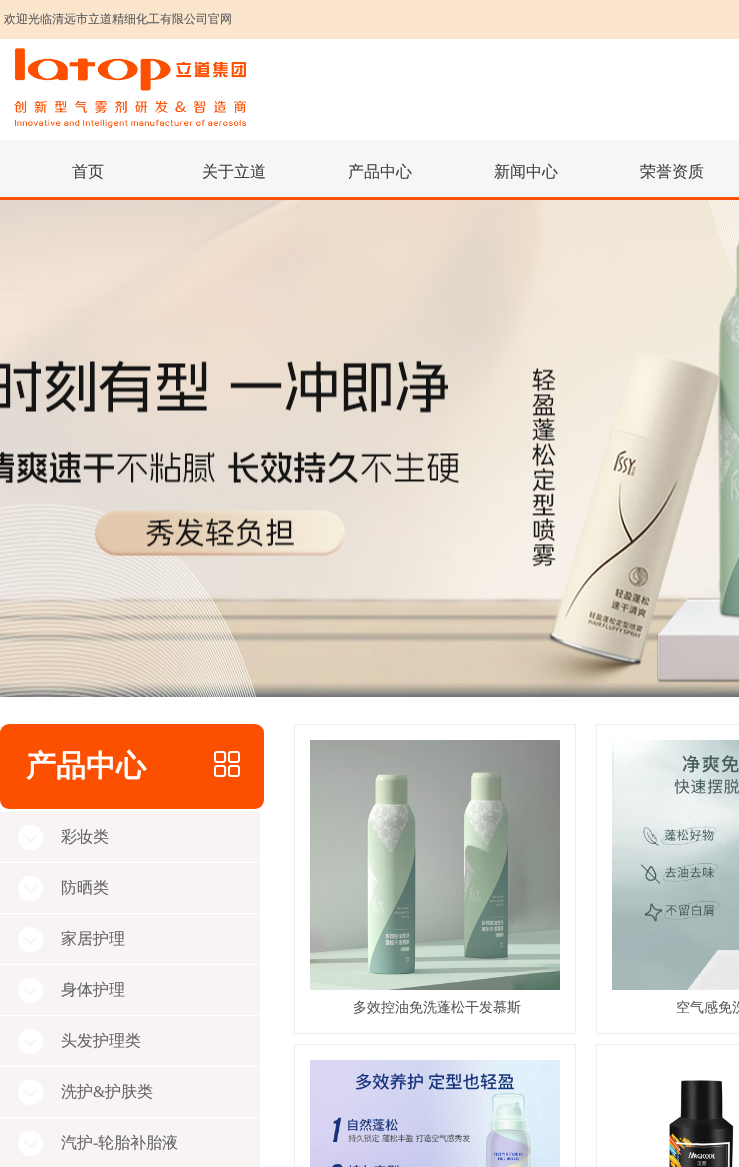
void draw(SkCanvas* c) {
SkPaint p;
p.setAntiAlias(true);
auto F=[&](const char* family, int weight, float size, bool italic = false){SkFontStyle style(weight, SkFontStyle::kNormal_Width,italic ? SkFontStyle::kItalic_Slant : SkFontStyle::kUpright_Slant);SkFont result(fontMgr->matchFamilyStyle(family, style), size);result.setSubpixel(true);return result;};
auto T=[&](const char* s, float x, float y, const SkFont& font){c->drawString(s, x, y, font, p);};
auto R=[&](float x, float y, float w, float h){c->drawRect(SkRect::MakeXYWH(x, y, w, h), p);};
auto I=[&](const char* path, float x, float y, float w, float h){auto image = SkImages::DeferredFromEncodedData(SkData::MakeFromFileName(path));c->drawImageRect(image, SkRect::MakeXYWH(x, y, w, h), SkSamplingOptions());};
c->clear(0xffffffff);
p.setColor(0xfffce5cd);
R(0,0,739,39);
auto f1 = F("WenQuanYi Zen Hei",500,12);
p.setColor(0xff5a5a5a);
T("欢迎光临清远市立道精细化工有限公司官网",4,23,f1);
I("1.png",14,48,232,80);
I("2.png",0,140,739,60);
auto f2 = F("WenQuanYi Zen Hei",500,16);
p.setColor(0xff434343);
T("首页",72,177,f2);
T("关于立道",202,177,f2);
T("产品中心",348,177,f2);
T("新闻中心",494,177,f2);
T("荣誉资质",640,177,f2);
I("3.png",0,200,739,497);
I("4.png",0,724,264,85);
auto f3 = F("WenQuanYi Zen Hei",700,30);
p.setColor(0xffffffff);
T("产品中心",26,776,f3);
I("5.png",214,751,26,26);
p.setColor(0xfff8f4f4);
R(0,812,260,50);
I("6.png",18,825,25,25);
p.setColor(0xff666666);
T("彩妆类",61,842,f2);
p.setColor(0xfff8f4f4);
R(0,863,260,50);
I("6.png",18,876,25,25);
p.setColor(0xff666666);
T("防晒类",61,893,f2);
p.setColor(0xfff8f4f4);
R(0,914,260,50);
I("6.png",18,927,25,25);
p.setColor(0xff666666);
T("家居护理",61,944,f2);
p.setColor(0xfff8f4f4);
R(0,965,260,50);
I("6.png",18,978,25,25);
p.setColor(0xff666666);
T("身体护理",61,995,f2);
p.setColor(0xfff8f4f4);
R(0,1016,260,50);
I("6.png",18,1029,25,25);
p.setColor(0xff666666);
T("头发护理类",61,1046,f2);
p.setColor(0xfff8f4f4);
R(0,1067,260,50);
I("6.png",18,1080,25,25);
p.setColor(0xff666666);
T("洗护",61,1097,f2);
auto f4 = F("Liberation Serif",400,16);
T("&",93,1097,f4);
T("护肤类",105,1097,f2);
p.setColor(0xfff8f4f4);
R(0,1118,260,49);
I("6.png",18,1131,25,25);
p.setColor(0xff666666);
T("汽护",61,1148,f2);
T("-",93,1148,f4);
T("轮胎补胎液",98,1148,f2);
p.setStroke(true);
p.setStrokeWidth(1);
p.setColor(0xffeeeeee);
c->drawRect(SkRect::MakeXYWH(294.5,724.5,281,309),p);
I("7.png",310,740,250,250);
auto f5 = F("WenQuanYi Zen Hei",500,14);
p.setStroke(false);
p.setColor(0xff5a5a5a);
T("多效控油免洗蓬松干发慕斯",353,1012,f5);
p.setStroke(true);
p.setColor(0xffeeeeee);
c->drawRect(SkRect::MakeXYWH(596.5,724.5,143,309),p);
I("8.png",612,740,127,250);
p.setStroke(false);
p.setColor(0xff5a5a5a);
T("空气感免洗",676,1012,f5);
p.setStroke(true);
p.setColor(0xffeeeeee);
c->drawRect(SkRect::MakeXYWH(294.5,1044.5,281,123),p);
I("9.png",310,1060,250,107);
c->drawRect(SkRect::MakeXYWH(596.5,1044.5,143,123),p);
I("10.png",669,1080,65,87);
}
